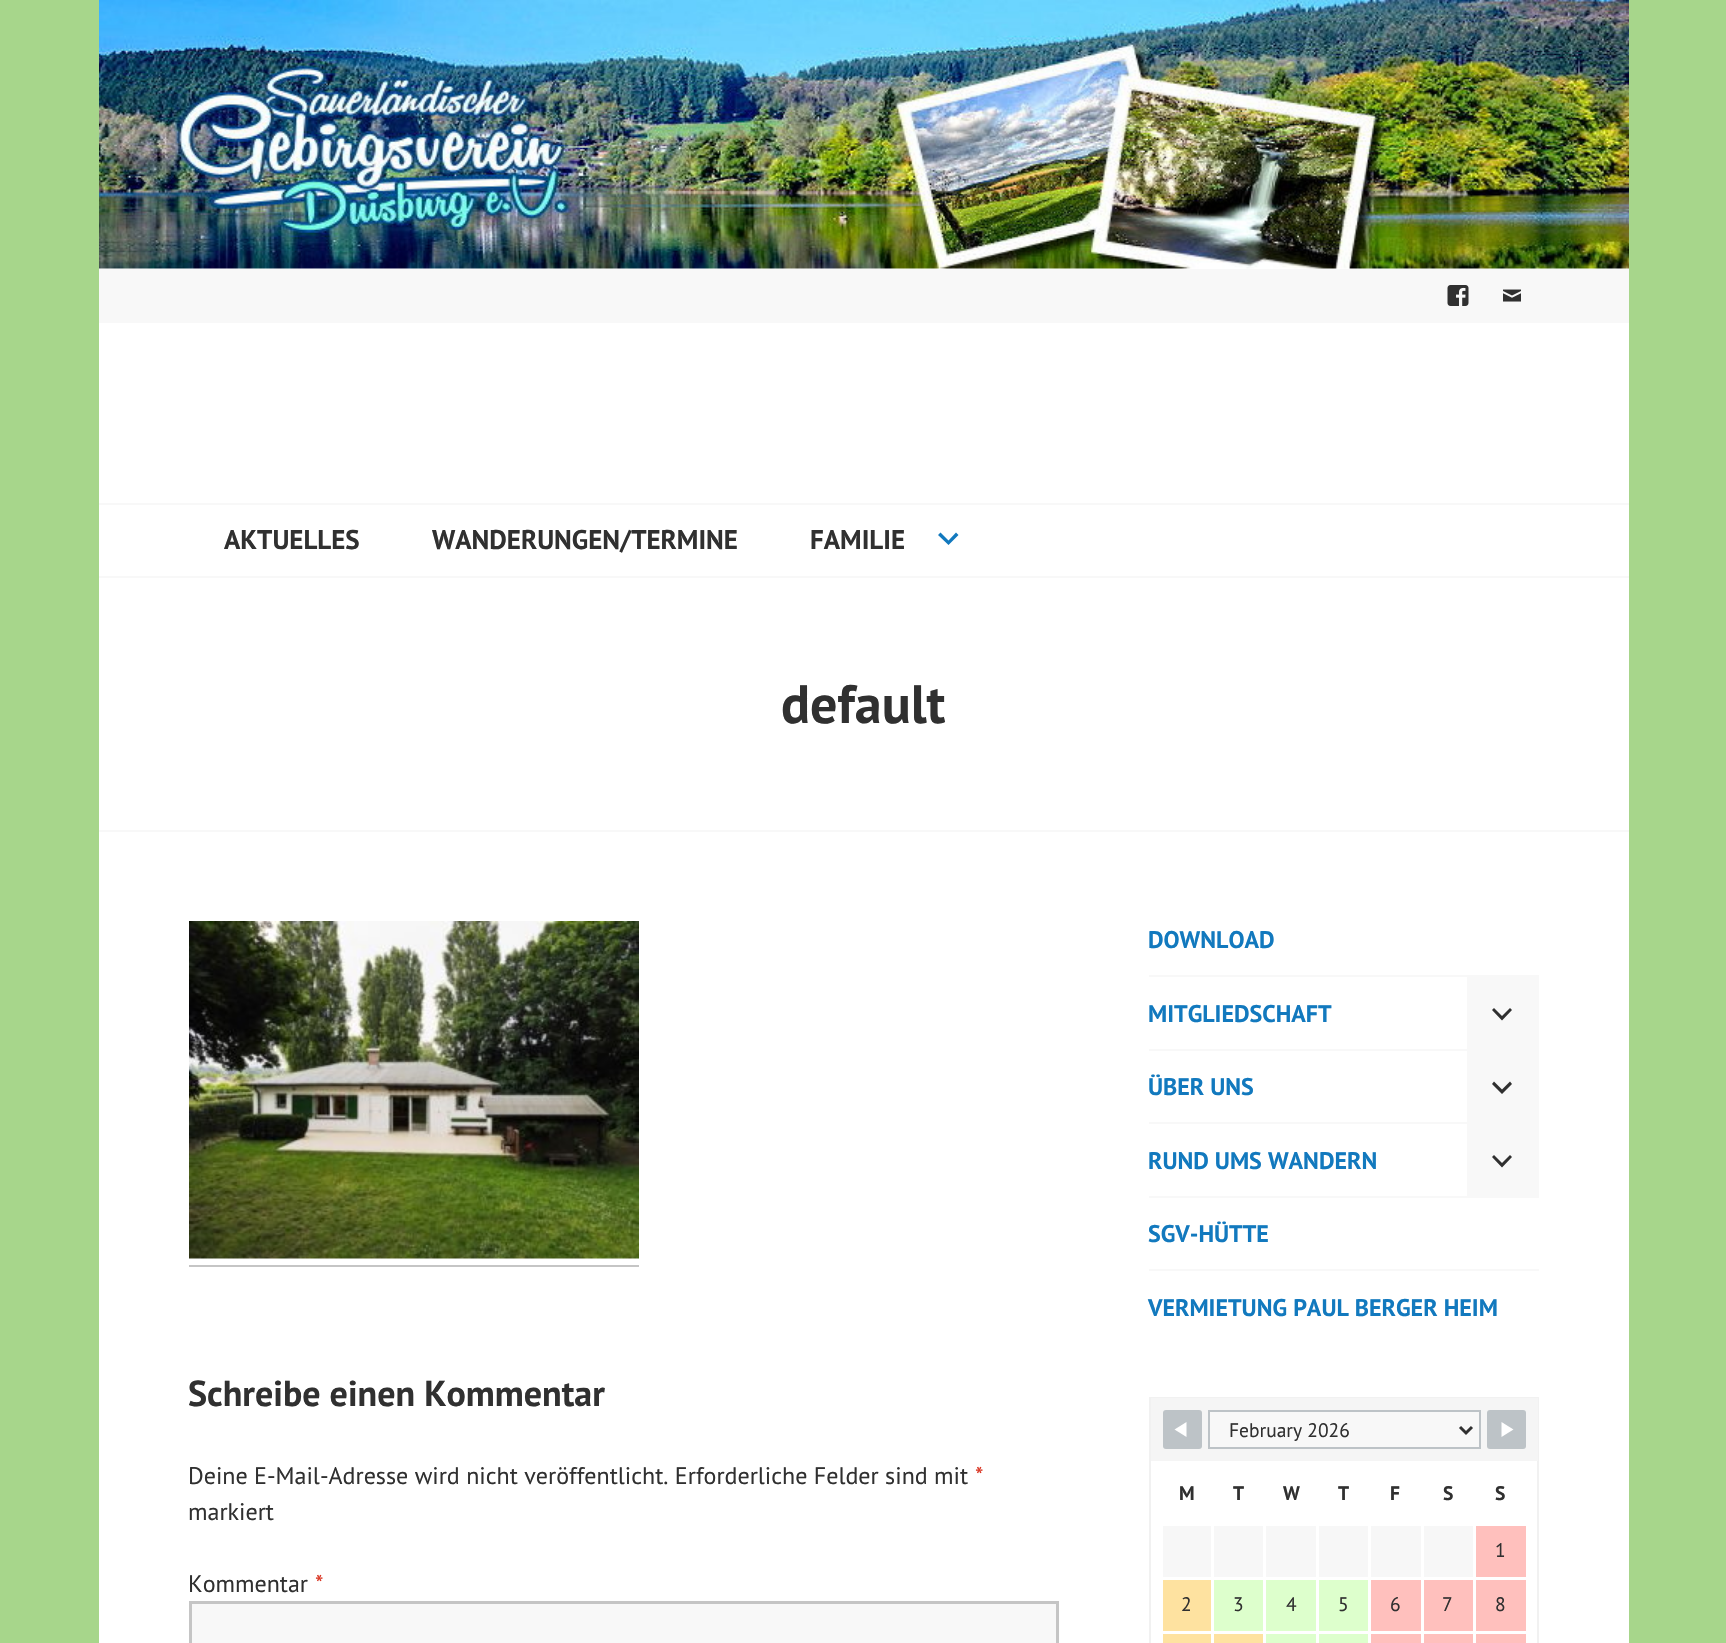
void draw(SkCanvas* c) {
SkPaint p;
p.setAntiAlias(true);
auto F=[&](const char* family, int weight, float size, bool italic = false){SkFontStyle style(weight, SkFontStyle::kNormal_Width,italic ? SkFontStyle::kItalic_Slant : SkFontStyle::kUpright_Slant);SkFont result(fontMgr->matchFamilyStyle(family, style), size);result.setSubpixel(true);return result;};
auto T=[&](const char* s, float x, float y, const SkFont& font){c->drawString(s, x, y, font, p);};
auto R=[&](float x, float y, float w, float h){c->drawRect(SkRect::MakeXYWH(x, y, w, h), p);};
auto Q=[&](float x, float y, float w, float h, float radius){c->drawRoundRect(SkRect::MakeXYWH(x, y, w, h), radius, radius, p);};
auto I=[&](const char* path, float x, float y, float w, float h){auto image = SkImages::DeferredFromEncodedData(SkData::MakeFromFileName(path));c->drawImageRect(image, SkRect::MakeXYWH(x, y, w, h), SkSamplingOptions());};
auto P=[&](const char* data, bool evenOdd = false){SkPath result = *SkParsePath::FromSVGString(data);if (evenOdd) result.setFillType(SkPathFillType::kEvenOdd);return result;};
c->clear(0xffa7d68b);
p.setColor(0xffffffff);
R(99,268,1530,308);
p.setColor(0xfff8f8f8);
R(99,576,1530,2);
I("1.png",99,0,1530,269);
R(99,269,1530,54);
I("2.png",1447,285,22,21);
I("3.png",1503,289,18,13);
R(99,503,1530,2);
auto f1 = F("PT Sans",700,27);
p.setColor(0xff303030);
T("AKTUELLES",224,549,f1);
T("WANDERUNGEN/TERMINE",432,549,f1);
T("FAMILIE",810,549,f1);
p.setColor(0xff1279be);
c->drawPath(P("M956 532.5l2.5 2.5l-10 10l-10.5-10l2.5-2.5l8 8z"),p);
p.setColor(0xffffffff);
R(99,578,1530,1065);
p.setColor(0xfff8f8f8);
R(99,830,1530,2);
auto f2 = F("PT Sans",700,54);
p.setColor(0xff303030);
T("default",781,723,f2);
I("4.png",189,921,450,338);
p.setColor(0xffc5c5c5);
R(189,1265,450,2);
auto f3 = F("PT Sans",700,36);
p.setColor(0xff303030);
T("Schreibe einen Kommentar",188,1406,f3);
auto f4 = F("PT Sans",400,24);
T("Deine E-Mail-Adresse wird nicht veröffentlicht. Erforderliche Felder sind mit",188,1484,f4);
p.setColor(0xffd9321f);
T("*",975,1484,f4);
p.setColor(0xff303030);
T("markiert",188,1520,f4);
T("Kommentar",188,1592,f4);
p.setColor(0xffd9321f);
T("*",315,1592,f4);
p.setColor(0xfff8f8f8);
c->drawRect(SkRect::MakeXYWH(190.5,1602.5,867,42),p);
p.setStroke(true);
p.setStrokeWidth(3);
p.setColor(0xffc5c5c5);
c->drawRect(SkRect::MakeXYWH(190.5,1602.5,867,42),p);
auto f5 = F("PT Sans",700,24);
p.setStroke(false);
p.setColor(0xff1279be);
T("DOWNLOAD",1148,948,f5);
p.setColor(0xfff8f8f8);
R(1149,975,390,2);
p.setColor(0xff1279be);
T("MITGLIEDSCHAFT",1148,1022,f5);
p.setColor(0xfff8f8f8);
R(1467,977,72,72);
p.setColor(0xff303030);
c->drawPath(P("M1510 1008l2 2l-10 10.5l-10-10.5l2-2l8 8z"),p);
p.setColor(0xfff8f8f8);
R(1149,1049,390,2);
p.setColor(0xff1279be);
T("ÜBER UNS",1148,1095,f5);
p.setColor(0xfff8f8f8);
R(1467,1051,72,71);
p.setColor(0xff303030);
c->drawPath(P("M1510 1081.5l2 2.5l-10 10l-10-10l2-2.5l8 8z"),p);
p.setColor(0xfff8f8f8);
R(1149,1122,390,2);
p.setColor(0xff1279be);
T("RUND UMS WANDERN",1148,1169,f5);
p.setColor(0xfff8f8f8);
R(1467,1124,72,72);
p.setColor(0xff303030);
c->drawPath(P("M1510 1155l2 2l-10 10.5l-10-10.5l2-2l8 8z"),p);
p.setColor(0xfff8f8f8);
R(1149,1196,390,2);
p.setColor(0xff1279be);
T("SGV-HÜTTE",1148,1242,f5);
p.setColor(0xfff8f8f8);
R(1149,1269,390,2);
p.setColor(0xff1279be);
T("VERMIETUNG PAUL BERGER HEIM",1148,1316,f5);
p.setStroke(true);
p.setStrokeWidth(2);
p.setColor(0xfff1f1f1);
c->drawRect(SkRect::MakeXYWH(1150,1398,388,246),p);
p.setStroke(false);
p.setColor(0xfff5f5f5);
R(1151,1398,387,63);
p.setColor(0xffbdc3c7);
Q(1163,1410,39,39,3);
p.setColor(0xffffffff);
c->drawPath(P("M1186.5 1422v15l-12-7.5z"),p);
p.setColor(0xfff8f8f8);
c->drawRect(SkRect::MakeXYWH(1209,1411,271,37),p);
p.setStroke(true);
p.setColor(0xffbdc3c7);
c->drawRect(SkRect::MakeXYWH(1209,1411,271,37),p);
p.setStrokeWidth(3);
p.setColor(0xff303030);
c->drawPath(P("M1460 1427l6 6l6-6"),p);
auto f6 = F("PT Sans",400,19.5);
p.setStroke(false);
T("February 2026",1229,1437,f6);
p.setColor(0xffbdc3c7);
Q(1487,1410,39,39,3);
p.setColor(0xffffffff);
c->drawPath(P("M1501.5 1437v-15l12 7.5z"),p);
auto f7 = F("PT Sans",700,19.5);
p.setColor(0xff303030);
T("M",1179,1500,f7);
T("T",1233,1500,f7);
T("W",1283,1500,f7);
T("T",1338,1500,f7);
T("F",1390,1500,f7);
T("S",1443,1500,f7);
T("S",1495,1500,f7);
p.setColor(0xfff7f7f7);
R(1163,1526,48,51);
R(1214,1526,49,51);
R(1266,1526,50,51);
R(1319,1526,49,51);
R(1371,1526,50,51);
R(1424,1526,49,51);
p.setColor(0xffffc0bd);
R(1476,1526,50,51);
p.setColor(0xff303030);
T("1",1495,1557,f6);
p.setColor(0xfffee2a0);
R(1163,1580,48,51);
p.setColor(0xff303030);
T("2",1181,1611,f6);
p.setColor(0xffddffcc);
R(1214,1580,49,51);
p.setColor(0xff303030);
T("3",1233,1611,f6);
p.setColor(0xffddffcc);
R(1266,1580,50,51);
p.setColor(0xff303030);
T("4",1286,1611,f6);
p.setColor(0xffddffcc);
R(1319,1580,49,51);
p.setColor(0xff303030);
T("5",1338,1611,f6);
p.setColor(0xffffc0bd);
R(1371,1580,50,51);
p.setColor(0xff303030);
T("6",1390,1611,f6);
p.setColor(0xffffc0bd);
R(1424,1580,49,51);
p.setColor(0xff303030);
T("7",1442,1611,f6);
p.setColor(0xffffc0bd);
R(1476,1580,50,51);
p.setColor(0xff303030);
T("8",1495,1611,f6);
p.setColor(0xfffee2a0);
R(1163,1634,48,9);
R(1214,1634,49,9);
p.setColor(0xffddffcc);
R(1266,1634,50,9);
R(1319,1634,49,9);
p.setColor(0xffffc0bd);
R(1371,1634,50,9);
R(1424,1634,49,9);
R(1476,1634,50,9);
}
